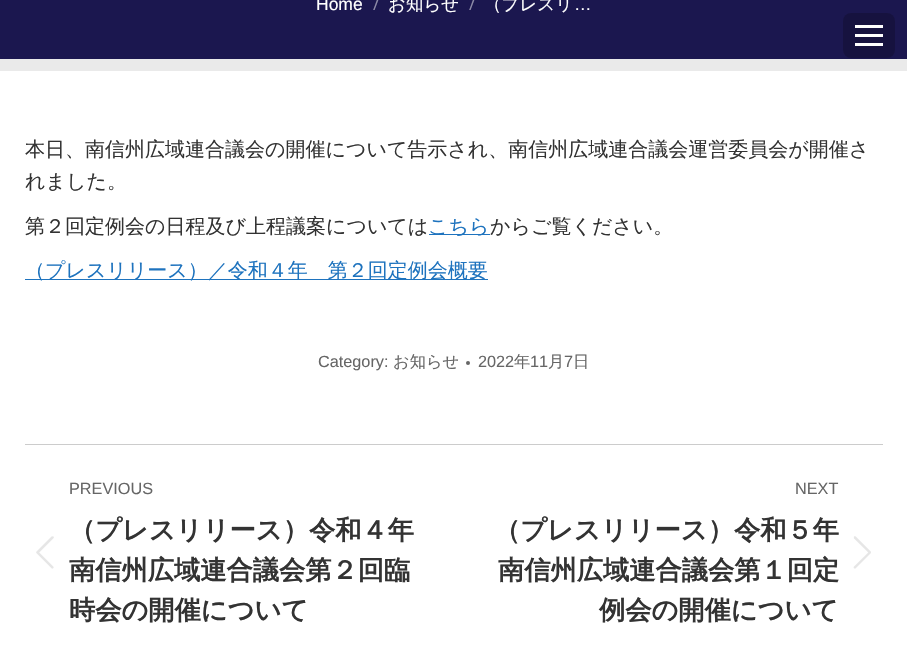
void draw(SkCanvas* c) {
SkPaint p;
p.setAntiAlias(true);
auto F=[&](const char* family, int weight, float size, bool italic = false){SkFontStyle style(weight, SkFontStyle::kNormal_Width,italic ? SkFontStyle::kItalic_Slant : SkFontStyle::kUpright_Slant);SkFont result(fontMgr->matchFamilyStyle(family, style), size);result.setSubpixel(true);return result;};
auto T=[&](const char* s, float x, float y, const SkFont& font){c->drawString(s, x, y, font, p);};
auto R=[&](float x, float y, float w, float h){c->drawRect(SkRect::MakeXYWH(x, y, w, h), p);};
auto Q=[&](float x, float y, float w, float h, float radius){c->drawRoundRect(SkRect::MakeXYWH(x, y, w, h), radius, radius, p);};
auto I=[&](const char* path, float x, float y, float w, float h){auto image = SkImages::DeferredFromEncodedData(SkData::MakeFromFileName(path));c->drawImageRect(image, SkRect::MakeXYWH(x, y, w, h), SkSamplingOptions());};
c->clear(0xffffffff);
p.setColor(0xff1b174f);
R(0,0,907,59);
p.setColor(0xffeaeaea);
R(0,59,907,12);
auto f1 = F("Liberation Sans",400,17.5);
p.setColor(0xffffffff);
T("Home",316,10,f1);
auto f2 = F("Open Sans",400,17.5);
p.setColor(0xff8d8ba7);
T("/",373,10,f2);
auto f3 = F("WenQuanYi Zen Hei",500,17.5);
p.setColor(0xffffffff);
T("お知らせ",388,10,f3);
p.setColor(0xff8d8ba7);
T("/",469,10,f2);
p.setColor(0xffffffff);
T("（プレスリ",484,10,f3);
T("…",574,10,f1);
p.setColor(0xff16123f);
Q(843,13,52,45,8);
p.setColor(0xffffffff);
R(855,25,28,3);
R(855,34,28,3);
R(855,43,28,3);
auto f4 = F("WenQuanYi Zen Hei",500,20);
p.setColor(0xff333333);
T("本日、南信州広域連合議会の開催について告示され、南信州広域連合議会運営委員会が開催さ",25,156,f4);
T("れました。",25,188,f4);
T("第２回定例会の日程及び上程議案については",25,233,f4);
p.setColor(0xff1e73be);
R(429,234,61,1);
T("こちら",428,233,f4);
p.setColor(0xff333333);
T("からご覧ください。",490,233,f4);
p.setColor(0xff1e73be);
R(25,279,463,1);
T("（プレスリリース）／令和４年　第２回定例会概要",25,277,f4);
auto f5 = F("Liberation Sans",400,16.25);
p.setColor(0xff666666);
T("Category:",318,367,f5);
auto f6 = F("WenQuanYi Zen Hei",500,16.25);
T("お知らせ",393,367,f6);
c->drawCircle(468,363,2,p);
T("2022",478,367,f5);
T("年",514,367,f6);
T("11",530,367,f5);
T("月",548,367,f6);
T("7",564,367,f5);
T("日",573,367,f6);
p.setColor(0xffcccccc);
R(25,444,858,1);
p.setColor(0xff666666);
T("PREVIOUS",69,494,f5);
I("1.png",36,536,18,33);
auto f7 = F("WenQuanYi Zen Hei",700,26.25);
p.setColor(0xff333333);
T("（プレスリリース）令和４年",69,539,f7);
T("南信州広域連合議会第２回臨",69,579,f7);
T("時会の開催について",69,619,f7);
p.setColor(0xff666666);
T("NEXT",795,494,f5);
p.setColor(0xff333333);
T("（プレスリリース）令和５年",494,539,f7);
T("南信州広域連合議会第１回定",498,579,f7);
T("例会の開催について",599,619,f7);
I("2.png",853,536,18,33);
}
